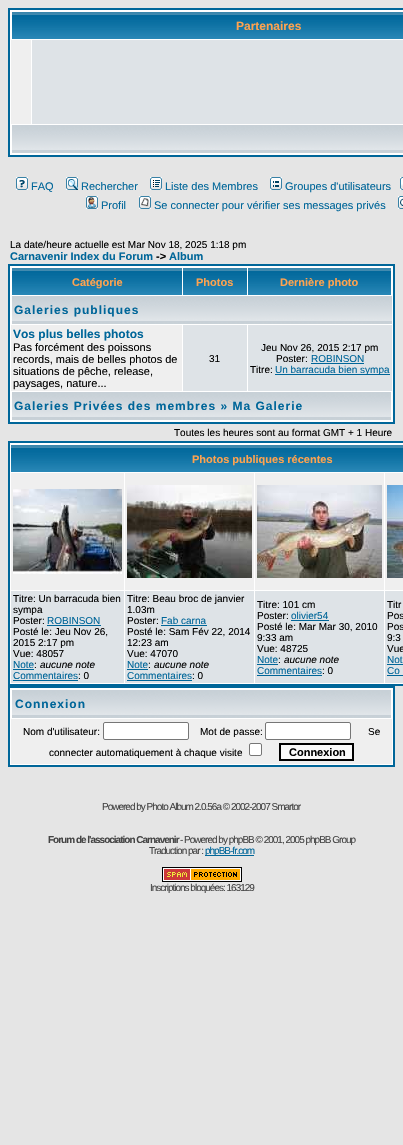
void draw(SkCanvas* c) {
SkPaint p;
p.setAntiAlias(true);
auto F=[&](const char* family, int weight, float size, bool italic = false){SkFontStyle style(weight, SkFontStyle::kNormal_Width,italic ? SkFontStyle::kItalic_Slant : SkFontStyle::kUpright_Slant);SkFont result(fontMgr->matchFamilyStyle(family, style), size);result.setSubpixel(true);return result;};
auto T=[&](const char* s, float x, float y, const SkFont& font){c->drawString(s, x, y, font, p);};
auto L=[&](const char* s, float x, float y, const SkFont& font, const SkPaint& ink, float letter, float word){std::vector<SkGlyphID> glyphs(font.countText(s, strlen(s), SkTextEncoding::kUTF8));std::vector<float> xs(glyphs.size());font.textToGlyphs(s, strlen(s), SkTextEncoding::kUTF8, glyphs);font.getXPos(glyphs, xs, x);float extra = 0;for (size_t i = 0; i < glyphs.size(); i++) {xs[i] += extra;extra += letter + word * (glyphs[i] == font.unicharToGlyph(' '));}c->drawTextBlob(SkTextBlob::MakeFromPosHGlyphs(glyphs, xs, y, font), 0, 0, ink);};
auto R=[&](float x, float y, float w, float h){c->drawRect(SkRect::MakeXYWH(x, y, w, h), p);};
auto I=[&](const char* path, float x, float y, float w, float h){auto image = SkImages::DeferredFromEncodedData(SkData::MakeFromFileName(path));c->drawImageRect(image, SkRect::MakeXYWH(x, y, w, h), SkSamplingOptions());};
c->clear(0xffe5e5e5);
p.setColor(0xffffffff);
c->drawRect(SkRect::MakeXYWH(9,9,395,147),p);
p.setStroke(true);
p.setStrokeWidth(2);
p.setColor(0xff006699);
c->drawRect(SkRect::MakeXYWH(9,9,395,147),p);
I("1.png",12,12,391,27);
auto f1 = F("Liberation Sans",700,12);
p.setStroke(false);
p.setColor(0xffffa34f);
T("Partenaires",236,30,f1);
p.setColor(0xffefefef);
R(11,40,20,84);
p.setColor(0xffdee3e7);
R(32,40,371,84);
I("2.png",12,125,391,28);
I("3.png",16,177,12,13);
auto f2 = F("Liberation Sans",400,11);
p.setColor(0xff006699);
T("FAQ",31,190,f2);
I("4.png",66,177,12,13);
T("Rechercher",81,190,f2);
I("5.png",150,177,12,13);
T("Liste des Membres",165,190,f2);
I("6.png",270,177,12,13);
T("Groupes d'utilisateurs",285,190,f2);
I("7.png",400,177,3,13);
I("8.png",86,196,12,13);
T("Profil",101,209,f2);
I("9.png",139,196,12,13);
T("Se connecter pour vérifier ses messages privés",154,209,f2);
I("10.png",398,196,5,13);
auto f3 = F("Liberation Sans",400,10);
p.setColor(0xff000000);
T("La date/heure actuelle est Mar Nov 18, 2025 1:18 pm",10,248,f3);
auto f4 = F("Liberation Sans",700,11);
p.setColor(0xff006699);
T("Carnavenir Index du Forum",10,260,f4);
p.setColor(0xff000000);
T("->",156,260,f4);
p.setColor(0xff006699);
T("Album",169,260,f4);
p.setColor(0xffffffff);
c->drawRect(SkRect::MakeXYWH(9,265,385,158),p);
p.setStroke(true);
p.setColor(0xff006699);
c->drawRect(SkRect::MakeXYWH(9,265,385,158),p);
I("11.png",12,268,170,27);
p.setStroke(false);
p.setColor(0xffffa34f);
T("Catégorie",72,286,f4);
I("12.png",183,268,64,27);
T("Photos",196,286,f4);
I("13.png",248,268,143,27);
T("Dernière photo",280,286,f4);
I("14.png",12,296,380,28);
p.setColor(0xff006699);
L("Galeries publiques",14,314,f1,p,1,0);
p.setColor(0xffefefef);
R(11,325,171,66);
p.setColor(0xff006699);
T("Vos plus belles photos",13,338,f1);
p.setColor(0xff000000);
T("Pas forcément des poissons",13,351,f2);
T("records, mais de belles photos de",13,363,f2);
T("situations de pêche, release,",13,375,f2);
T("paysages, nature...",13,387,f2);
p.setColor(0xffdee3e7);
R(183,325,64,66);
p.setColor(0xff000000);
T("31",209,362,f3);
p.setColor(0xffdee3e7);
R(248,325,144,66);
p.setColor(0xff000000);
T("Jeu Nov 26, 2015 2:17 pm",261,351,f3);
T("Poster:",276,362,f3);
p.setColor(0xff006699);
T("ROBINSON",311,362,f3);
R(311,363,53,1);
p.setColor(0xff000000);
T("Titre:",250,373,f3);
p.setColor(0xff006699);
R(275,374,115,1);
T("Un barracuda bien sympa",275,373,f3);
I("15.png",12,392,379,28);
L("Galeries Privées des membres » Ma Galerie",14,410,f1,p,1,0);
p.setColor(0xff000000);
T("Toutes les heures sont au format GMT + 1 Heure",174,436,f3);
p.setColor(0xffffffff);
c->drawRect(SkRect::MakeXYWH(9,442,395,243),p);
p.setStroke(true);
p.setColor(0xff006699);
c->drawRect(SkRect::MakeXYWH(9,442,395,243),p);
I("16.png",11,445,392,27);
p.setStroke(false);
p.setColor(0xffffa34f);
T("Photos publiques récentes",192,463,f4);
p.setColor(0xffefefef);
R(11,473,113,117);
I("17.png",13,489,109,85);
R(125,473,129,117);
I("18.png",127,485,125,93);
R(255,473,129,117);
I("19.png",257,485,125,93);
R(385,473,18,117);
I("20.png",387,485,16,93);
p.setColor(0xffdee3e7);
R(11,591,113,92);
p.setColor(0xff000000);
T("Titre: Un barracuda bien",13,602,f3);
T("sympa",13,613,f3);
T("Poster:",13,624,f3);
p.setColor(0xff006699);
T("ROBINSON",47,624,f3);
R(47,625,54,1);
p.setColor(0xff000000);
T("Posté le: Jeu Nov 26,",13,635,f3);
T("2015 2:17 pm",13,646,f3);
T("Vue: 48057",13,657,f3);
p.setColor(0xff006699);
T("Note",13,668,f3);
R(13,669,21,1);
p.setColor(0xff000000);
T(":",34,668,f3);
auto f5 = F("Liberation Sans",400,10,true);
T("aucune note",40,668,f5);
p.setColor(0xff006699);
T("Commentaires",13,679,f3);
p.setColor(0xff000000);
T(": 0",78,679,f3);
p.setColor(0xff006699);
R(13,680,65,1);
p.setColor(0xffdee3e7);
R(125,591,129,92);
p.setColor(0xff000000);
T("Titre: Beau broc de janvier",127,602,f3);
T("1.03m",127,613,f3);
T("Poster:",127,624,f3);
p.setColor(0xff006699);
T("Fab carna",161,624,f3);
R(161,625,46,1);
p.setColor(0xff000000);
T("Posté le: Sam Fév 22, 2014",127,635,f3);
T("12:23 am",127,646,f3);
T("Vue: 47070",127,657,f3);
p.setColor(0xff006699);
T("Note",127,668,f3);
R(127,669,21,1);
p.setColor(0xff000000);
T(":",148,668,f3);
T("aucune note",154,668,f5);
p.setColor(0xff006699);
T("Commentaires",127,679,f3);
p.setColor(0xff000000);
T(": 0",192,679,f3);
p.setColor(0xff006699);
R(127,680,65,1);
p.setColor(0xffdee3e7);
R(255,591,129,92);
p.setColor(0xff000000);
T("Titre: 101 cm",257,608,f3);
T("Poster:",257,619,f3);
p.setColor(0xff006699);
T("olivier54",291,619,f3);
R(291,620,38,1);
p.setColor(0xff000000);
T("Posté le: Mar Mar 30, 2010",257,630,f3);
T("9:33 am",257,641,f3);
T("Vue: 48725",257,652,f3);
p.setColor(0xff006699);
T("Note",257,663,f3);
R(257,664,21,1);
p.setColor(0xff000000);
T(":",278,663,f3);
T("aucune note",284,663,f5);
p.setColor(0xff006699);
T("Commentaires",257,674,f3);
p.setColor(0xff000000);
T(": 0",322,674,f3);
p.setColor(0xff006699);
R(257,675,65,1);
p.setColor(0xffdee3e7);
R(385,591,18,92);
p.setColor(0xff000000);
T("Titr",387,608,f3);
T("Pos",387,619,f3);
T("Pos",387,630,f3);
T("9:3",387,641,f3);
T("Vue",387,652,f3);
p.setColor(0xff006699);
T("Not",387,663,f3);
R(387,664,16,1);
T("Co",387,674,f3);
R(387,675,16,1);
p.setColor(0xffffffff);
c->drawRect(SkRect::MakeXYWH(9,687,385,79),p);
p.setStroke(true);
p.setColor(0xff006699);
c->drawRect(SkRect::MakeXYWH(9,687,385,79),p);
I("15.png",12,690,379,28);
p.setStroke(false);
L("Connexion",15,708,f1,p,1,0);
p.setColor(0xffefefef);
R(11,719,381,45);
p.setColor(0xff000000);
T("Nom d'utilisateur:",23,735,f3);
p.setColor(0xffffffff);
c->drawRoundRect(SkRect::MakeXYWH(103.5,722.5,85,17),1.5,1.5,p);
p.setStroke(true);
p.setStrokeWidth(1);
p.setColor(0xff767676);
c->drawRoundRect(SkRect::MakeXYWH(103.5,722.5,85,17),1.5,1.5,p);
p.setStroke(false);
p.setColor(0xff000000);
T("Mot de passe:",200,735,f3);
p.setColor(0xffffffff);
c->drawRoundRect(SkRect::MakeXYWH(265.5,722.5,85,17),1.5,1.5,p);
p.setStroke(true);
p.setColor(0xff767676);
c->drawRoundRect(SkRect::MakeXYWH(265.5,722.5,85,17),1.5,1.5,p);
p.setStroke(false);
p.setColor(0xff000000);
T("Se",368,735,f3);
T("connecter automatiquement à chaque visite",49,756,f3);
p.setColor(0xffffffff);
c->drawRoundRect(SkRect::MakeXYWH(249.5,743.5,12,12),1.5,1.5,p);
p.setStroke(true);
p.setColor(0xff767676);
c->drawRoundRect(SkRect::MakeXYWH(249.5,743.5,12,12),1.5,1.5,p);
p.setStroke(false);
p.setColor(0xfffafafa);
c->drawRect(SkRect::MakeXYWH(280,744,73,16),p);
p.setStroke(true);
p.setStrokeWidth(2);
p.setColor(0xff000000);
c->drawRect(SkRect::MakeXYWH(280,744,73,16),p);
p.setStroke(false);
T("Connexion",289,756,f4);
p.setColor(0xff444444);
L("Powered by Photo Album 2.0.56a © 2002-2007 Smartor",102,810,f3,p,-1,0);
auto f6 = F("Liberation Sans",700,10);
L("Forum de l'association Carnavenir",48,843,f6,p,-1,0);
L("- Powered by phpBB © 2001, 2005 phpBB Group",180,843,f3,p,-1,0);
L("Traduction par :",149,854,f3,p,-1,0);
p.setColor(0xff006699);
R(205,855,49,1);
L("phpBB-fr.com",205,854,f3,p,-1,0);
I("21.png",162,867,80,15);
p.setColor(0xff444444);
L("Inscriptions bloquées: 163129",150,891,f3,p,-1,0);
}
